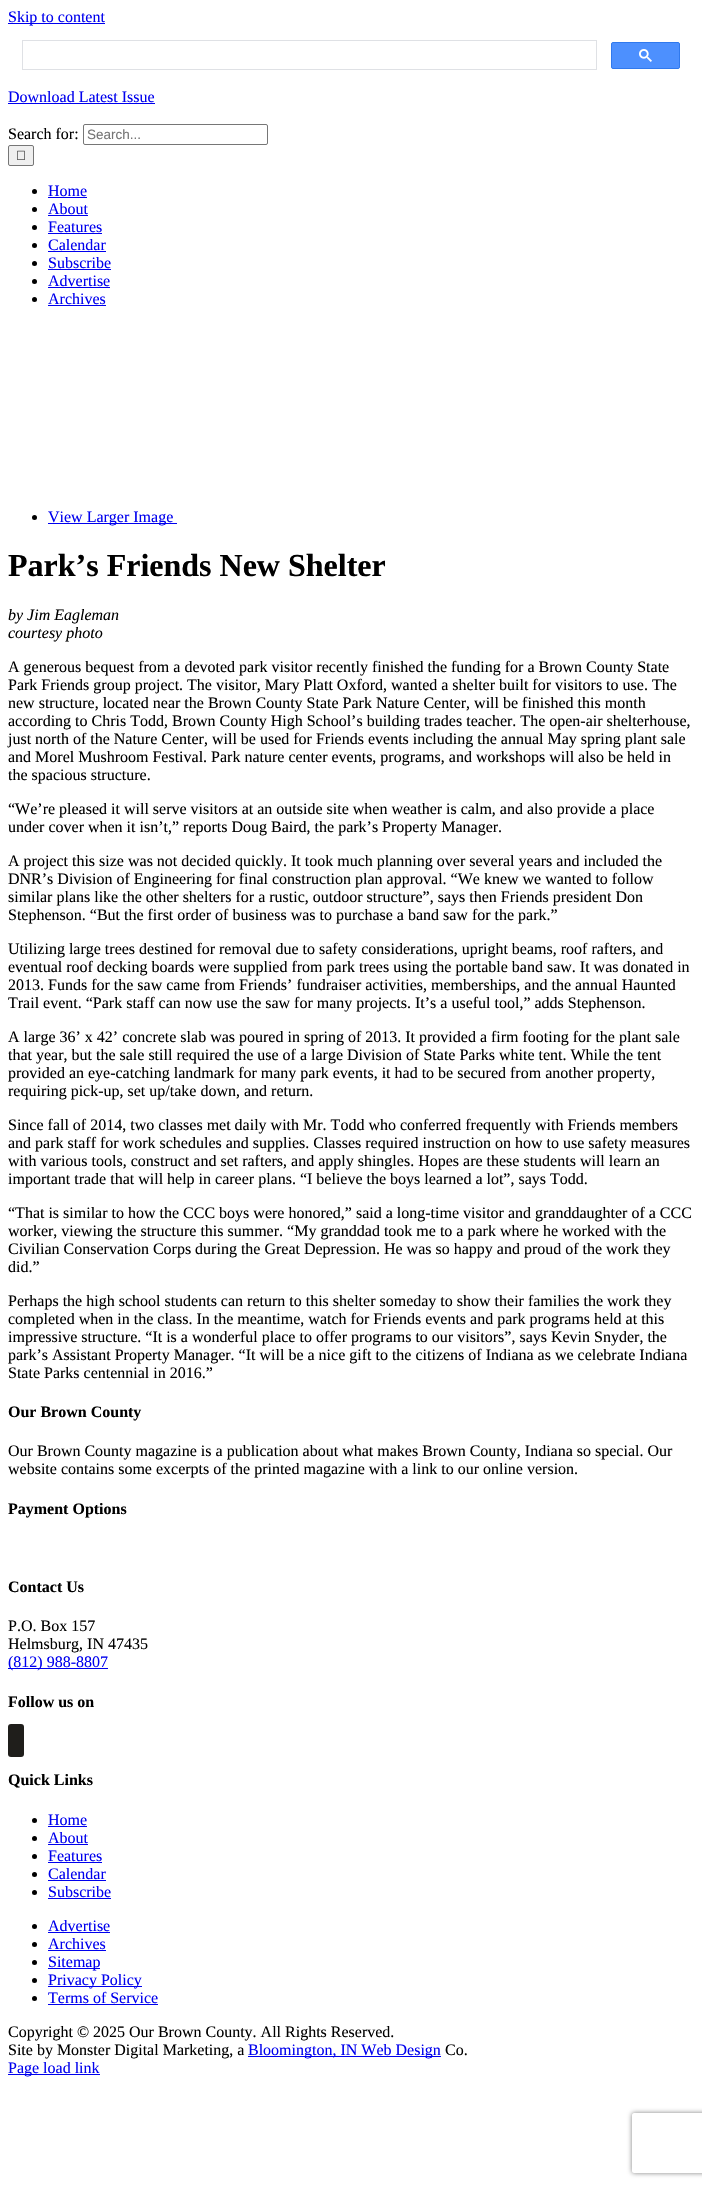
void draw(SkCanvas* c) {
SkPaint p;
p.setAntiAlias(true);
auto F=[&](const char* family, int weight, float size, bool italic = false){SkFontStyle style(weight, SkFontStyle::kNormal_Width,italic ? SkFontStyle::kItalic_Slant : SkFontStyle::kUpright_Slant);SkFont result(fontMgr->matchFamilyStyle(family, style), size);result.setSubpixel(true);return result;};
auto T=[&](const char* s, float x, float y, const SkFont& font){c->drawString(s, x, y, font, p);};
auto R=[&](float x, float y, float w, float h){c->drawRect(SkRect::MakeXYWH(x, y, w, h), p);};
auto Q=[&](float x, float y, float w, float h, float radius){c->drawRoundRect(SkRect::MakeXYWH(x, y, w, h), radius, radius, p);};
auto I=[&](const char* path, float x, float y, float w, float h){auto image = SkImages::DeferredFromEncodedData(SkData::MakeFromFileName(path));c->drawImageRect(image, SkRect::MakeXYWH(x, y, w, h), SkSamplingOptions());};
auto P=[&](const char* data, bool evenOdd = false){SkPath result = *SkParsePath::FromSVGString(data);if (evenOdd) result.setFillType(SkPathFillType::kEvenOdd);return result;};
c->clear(0xffffffff);
p.setColor(0xff0000ee);
R(8,23,97,1);
auto f1 = F("Liberation Serif",400,16);
T("Skip to content",8,22,f1);
p.setStroke(true);
p.setStrokeWidth(1);
p.setColor(0xffdfe1e5);
c->drawRect(SkRect::MakeXYWH(22.5,40.5,574,29),p);
p.setStroke(false);
p.setColor(0xff4d90fe);
c->drawRoundRect(SkRect::MakeXYWH(611.5,42.5,68,26),1.5,1.5,p);
p.setStroke(true);
p.setColor(0xff3079ed);
c->drawRoundRect(SkRect::MakeXYWH(611.5,42.5,68,26),1.5,1.5,p);
I("1.png",639,49,13,13);
p.setStroke(false);
p.setColor(0xff0000ee);
T("Download Latest Issue",8,102,f1);
R(8,103,147,1);
p.setColor(0xff000000);
T("Search for:",8,139,f1);
p.setStroke(true);
p.setColor(0xff767676);
c->drawRoundRect(SkRect::MakeXYWH(83.5,124.5,184,20),1.5,1.5,p);
auto f2 = F("Liberation Sans",400,13.5);
p.setStroke(false);
p.setColor(0xff757575);
T("Search...",87,139,f2);
p.setColor(0xffefefef);
c->drawRoundRect(SkRect::MakeXYWH(8.5,145.5,25,20),1.5,1.5,p);
p.setStroke(true);
p.setColor(0xff767676);
c->drawRoundRect(SkRect::MakeXYWH(8.5,145.5,25,20),1.5,1.5,p);
I("2.png",17,150,8,10);
p.setStroke(false);
p.setColor(0xff000000);
c->drawCircle(34.5,191.5,2.5,p);
p.setColor(0xff0000ee);
T("Home",48,196,f1);
R(48,197,39,1);
p.setColor(0xff000000);
c->drawCircle(34.5,209.5,2.5,p);
p.setColor(0xff0000ee);
T("About",48,214,f1);
R(48,215,40,1);
p.setColor(0xff000000);
c->drawCircle(34.5,227.5,2.5,p);
p.setColor(0xff0000ee);
T("Features",48,232,f1);
R(48,233,54,1);
p.setColor(0xff000000);
c->drawCircle(34.5,245.5,2.5,p);
p.setColor(0xff0000ee);
T("Calendar",48,250,f1);
R(48,251,58,1);
p.setColor(0xff000000);
c->drawCircle(34.5,263.5,2.5,p);
p.setColor(0xff0000ee);
T("Subscribe",48,268,f1);
R(48,269,63,1);
p.setColor(0xff000000);
c->drawCircle(34.5,281.5,2.5,p);
p.setColor(0xff0000ee);
T("Advertise",48,286,f1);
R(48,287,62,1);
p.setColor(0xff000000);
c->drawCircle(34.5,299.5,2.5,p);
p.setColor(0xff0000ee);
T("Archives",48,304,f1);
R(48,305,58,1);
p.setColor(0xff000000);
c->drawCircle(34.5,517.5,2.5,p);
p.setColor(0xff0000ee);
R(48,523,129,1);
T("View Larger Image",48,522,f1);
auto f3 = F("Liberation Serif",700,32);
p.setColor(0xff000000);
T("Park’s Friends New Shelter",8,576,f3);
auto f4 = F("Liberation Serif",400,16,true);
T("by Jim Eagleman",8,620,f4);
T("courtesy photo",8,638,f4);
T("A generous bequest from a devoted park visitor recently finished the funding for a Brown County State",8,672,f1);
T("Park Friends group project. The visitor, Mary Platt Oxford, wanted a shelter built for visitors to use. The",8,690,f1);
T("new structure, located near the Brown County State Park Nature Center, will be finished this month",8,708,f1);
T("according to Chris Todd, Brown County High School’s building trades teacher. The open-air shelterhouse,",8,726,f1);
T("just north of the Nature Center, will be used for Friends events including the annual May spring plant sale",8,744,f1);
T("and Morel Mushroom Festival. Park nature center events, programs, and workshops will also be held in",8,762,f1);
T("the spacious structure.",8,780,f1);
T("“We’re pleased it will serve visitors at an outside site when weather is calm, and also provide a place",8,814,f1);
T("under cover when it isn’t,” reports Doug Baird, the park’s Property Manager.",8,832,f1);
T("A project this size was not decided quickly. It took much planning over several years and included the",8,866,f1);
T("DNR’s Division of Engineering for final construction plan approval. “We knew we wanted to follow",8,884,f1);
T("similar plans like the other shelters for a rustic, outdoor structure”, says then Friends president Don",8,902,f1);
T("Stephenson. “But the first order of business was to purchase a band saw for the park.”",8,920,f1);
T("Utilizing large trees destined for removal due to safety considerations, upright beams, roof rafters, and",8,954,f1);
T("eventual roof decking boards were supplied from park trees using the portable band saw. It was donated in",8,972,f1);
T("2013. Funds for the saw came from Friends’ fundraiser activities, memberships, and the annual Haunted",8,990,f1);
T("Trail event. “Park staff can now use the saw for many projects. It’s a useful tool,” adds Stephenson.",8,1008,f1);
T("A large 36’ x 42’ concrete slab was poured in spring of 2013. It provided a firm footing for the plant sale",8,1042,f1);
T("that year, but the sale still required the use of a large Division of State Parks white tent. While the tent",8,1060,f1);
T("provided an eye-catching landmark for many park events, it had to be secured from another property,",8,1078,f1);
T("requiring pick-up, set up/take down, and return.",8,1096,f1);
T("Since fall of 2014, two classes met daily with Mr. Todd who conferred frequently with Friends members",8,1130,f1);
T("and park staff for work schedules and supplies. Classes required instruction on how to use safety measures",8,1148,f1);
T("with various tools, construct and set rafters, and apply shingles. Hopes are these students will learn an",8,1166,f1);
T("important trade that will help in career plans. “I believe the boys learned a lot”, says Todd.",8,1184,f1);
T("“That is similar to how the CCC boys were honored,” said a long-time visitor and granddaughter of a CCC",8,1218,f1);
T("worker, viewing the structure this summer. “My granddad took me to a park where he worked with the",8,1236,f1);
T("Civilian Conservation Corps during the Great Depression. He was so happy and proud of the work they",8,1254,f1);
T("did.”",8,1272,f1);
T("Perhaps the high school students can return to this shelter someday to show their families the work they",8,1306,f1);
T("completed when in the class. In the meantime, watch for Friends events and park programs held at this",8,1324,f1);
T("impressive structure. “It is a wonderful place to offer programs to our visitors”, says Kevin Snyder, the",8,1342,f1);
T("park’s Assistant Property Manager. “It will be a nice gift to the citizens of Indiana as we celebrate Indiana",8,1360,f1);
T("State Parks centennial in 2016.”",8,1378,f1);
auto f5 = F("Liberation Serif",700,16);
T("Our Brown County",8,1417,f5);
T("Our Brown County magazine is a publication about what makes Brown County, Indiana so special. Our",8,1456,f1);
T("website contains some excerpts of the printed magazine with a link to our online version.",8,1474,f1);
T("Payment Options",8,1514,f5);
T("Contact Us",8,1592,f5);
T("P.O. Box 157",8,1631,f1);
T("Helmsburg, IN 47435",8,1649,f1);
p.setColor(0xff0000ee);
R(8,1668,100,1);
T("(812) 988-8807",8,1667,f1);
p.setColor(0xff000000);
T("Follow us on",8,1707,f5);
p.setColor(0xff1f1e1b);
Q(8,1724,16,33,3);
p.setColor(0xff000000);
T("Quick Links",8,1785,f5);
c->drawCircle(34.5,1820.5,2.5,p);
p.setColor(0xff0000ee);
T("Home",48,1825,f1);
R(48,1826,39,1);
p.setColor(0xff000000);
c->drawCircle(34.5,1838.5,2.5,p);
p.setColor(0xff0000ee);
T("About",48,1843,f1);
R(48,1844,40,1);
p.setColor(0xff000000);
c->drawCircle(34.5,1856.5,2.5,p);
p.setColor(0xff0000ee);
T("Features",48,1861,f1);
R(48,1862,54,1);
p.setColor(0xff000000);
c->drawCircle(34.5,1874.5,2.5,p);
p.setColor(0xff0000ee);
T("Calendar",48,1879,f1);
R(48,1880,58,1);
p.setColor(0xff000000);
c->drawCircle(34.5,1892.5,2.5,p);
p.setColor(0xff0000ee);
T("Subscribe",48,1897,f1);
R(48,1898,63,1);
p.setColor(0xff000000);
c->drawCircle(34.5,1926.5,2.5,p);
p.setColor(0xff0000ee);
T("Advertise",48,1931,f1);
R(48,1932,62,1);
p.setColor(0xff000000);
c->drawCircle(34.5,1944.5,2.5,p);
p.setColor(0xff0000ee);
T("Archives",48,1949,f1);
R(48,1950,58,1);
p.setColor(0xff000000);
c->drawCircle(34.5,1962.5,2.5,p);
p.setColor(0xff0000ee);
R(48,1968,52,1);
T("Sitemap",48,1967,f1);
p.setColor(0xff000000);
c->drawCircle(34.5,1980.5,2.5,p);
p.setColor(0xff0000ee);
R(48,1986,94,1);
T("Privacy Policy",48,1985,f1);
p.setColor(0xff000000);
c->drawCircle(34.5,1998.5,2.5,p);
p.setColor(0xff0000ee);
T("Terms of Service",48,2003,f1);
R(48,2004,110,1);
p.setColor(0xff000000);
T("Copyright © 2025 Our Brown County. All Rights Reserved.",8,2037,f1);
T("Site by Monster Digital Marketing, a",8,2055,f1);
p.setColor(0xff0000ee);
R(248,2056,193,1);
T("Bloomington, IN Web Design",248,2055,f1);
p.setColor(0xff000000);
T("Co.",445,2055,f1);
p.setColor(0xff0000ee);
R(8,2074,92,1);
T("Page load link",8,2073,f1);
c->save();
c->clipPath(P("M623 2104h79v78h-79zm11 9h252c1 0 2 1 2 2v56c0 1-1 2-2 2h-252c-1 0-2-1-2-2v-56c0-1 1-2 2-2z",true),true);
p.setColor(0xff808080);
p.setMaskFilter(SkMaskFilter::MakeBlur(kNormal_SkBlurStyle, 2.5));
c->drawRoundRect(SkRect::MakeXYWH(632,2113,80,60),2,2,p);
p.setMaskFilter(nullptr);
c->restore();
}
